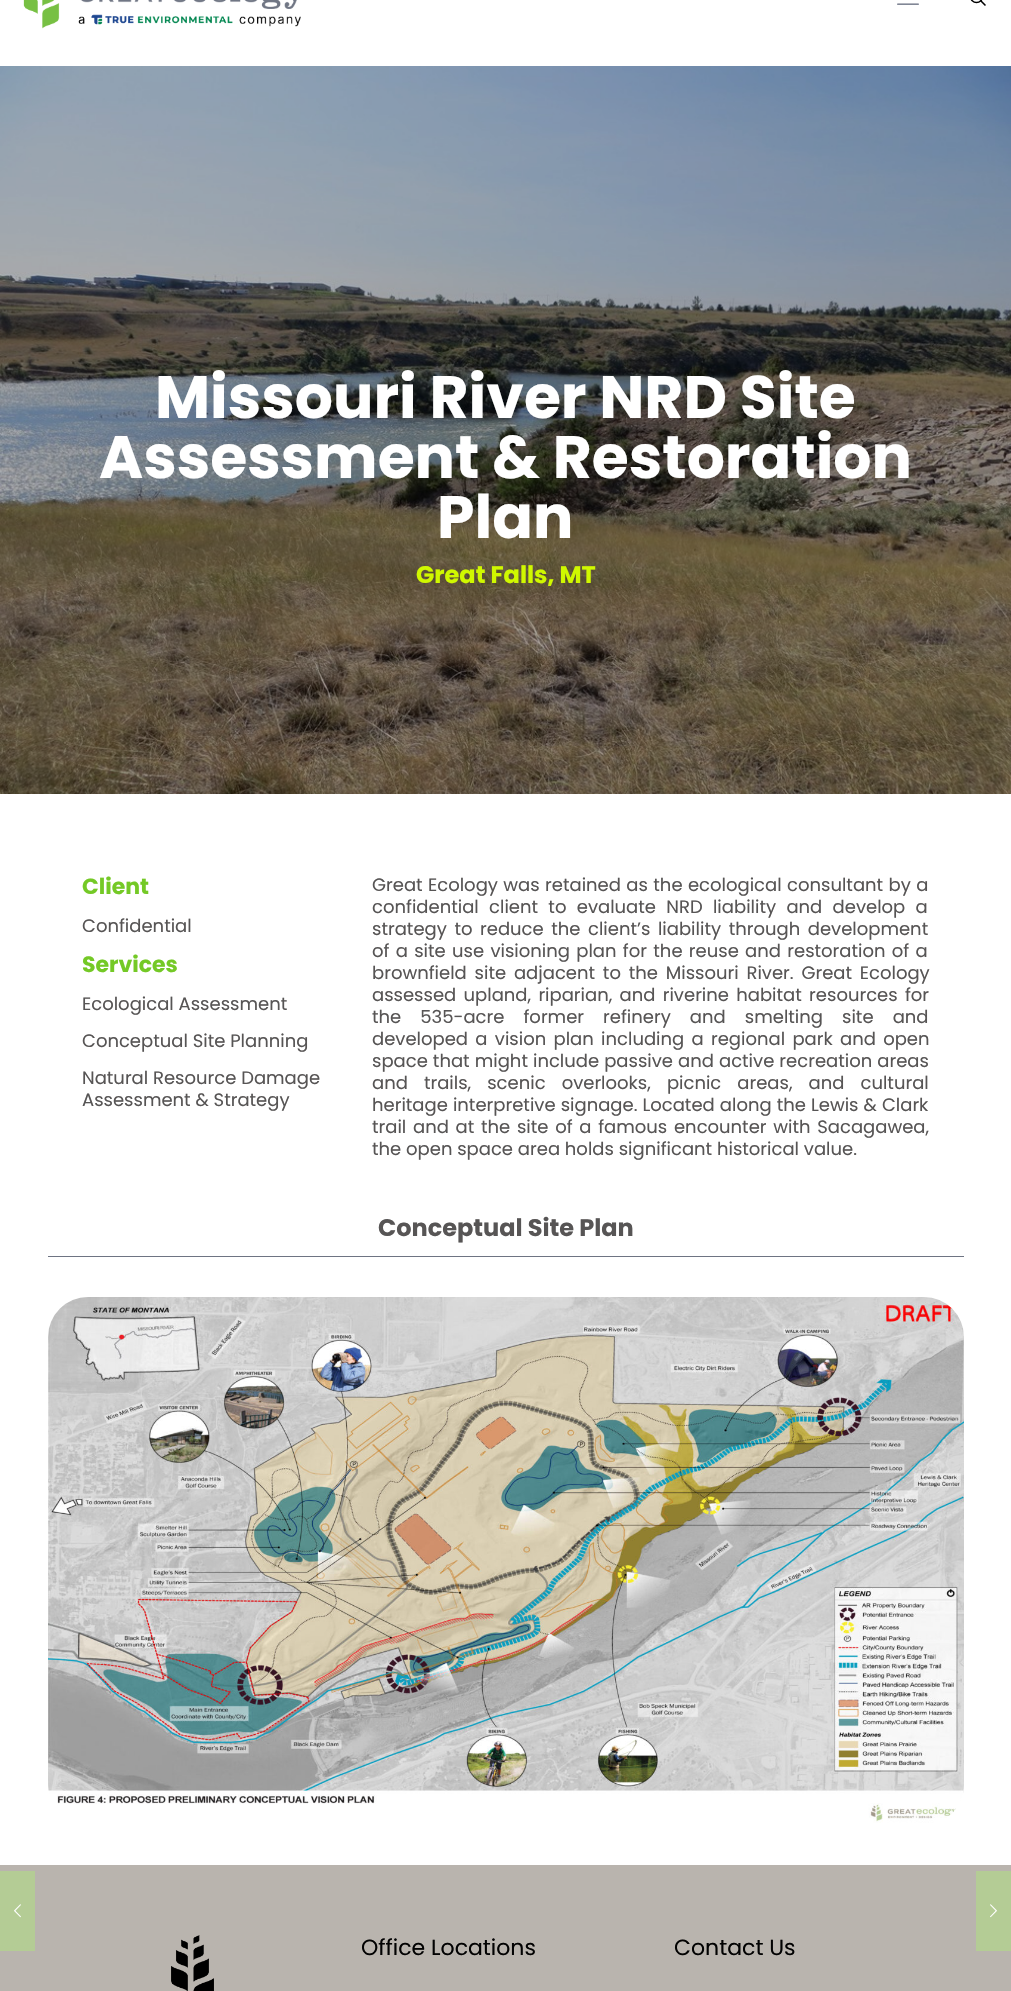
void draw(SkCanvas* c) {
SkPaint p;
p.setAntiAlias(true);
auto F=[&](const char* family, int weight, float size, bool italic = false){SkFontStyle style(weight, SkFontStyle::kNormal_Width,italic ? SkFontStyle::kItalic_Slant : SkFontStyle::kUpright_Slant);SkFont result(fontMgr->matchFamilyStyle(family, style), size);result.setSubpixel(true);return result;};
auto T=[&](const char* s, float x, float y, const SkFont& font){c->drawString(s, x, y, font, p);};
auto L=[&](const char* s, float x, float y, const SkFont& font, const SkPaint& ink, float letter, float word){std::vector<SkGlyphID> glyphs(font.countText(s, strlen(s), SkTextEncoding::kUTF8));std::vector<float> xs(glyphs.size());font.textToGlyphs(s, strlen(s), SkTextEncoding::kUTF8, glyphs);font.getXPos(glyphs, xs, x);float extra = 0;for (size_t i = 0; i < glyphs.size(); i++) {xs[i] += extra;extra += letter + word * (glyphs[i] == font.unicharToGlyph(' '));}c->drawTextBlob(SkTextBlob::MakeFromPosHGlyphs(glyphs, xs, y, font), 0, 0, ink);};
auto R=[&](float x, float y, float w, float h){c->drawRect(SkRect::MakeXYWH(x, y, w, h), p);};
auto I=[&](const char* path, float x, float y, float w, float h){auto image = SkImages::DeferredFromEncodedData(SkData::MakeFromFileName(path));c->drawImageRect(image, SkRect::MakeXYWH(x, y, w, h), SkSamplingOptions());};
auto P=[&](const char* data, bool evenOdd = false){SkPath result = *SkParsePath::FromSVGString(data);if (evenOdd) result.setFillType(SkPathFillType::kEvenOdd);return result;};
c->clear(0xffffffff);
p.setColor(0xffb9b4ae);
R(0,1865,1011,126);
p.setColor(0xffb4cc95);
R(0,1871,35,80);
I("1.png",14,1904,7,14);
I("2.png",23,0,278,29);
I("3.png",897,3,22,2);
p.setStroke(true);
p.setStrokeWidth(1.5);
p.setColor(0xff000000);
c->drawCircle(976.5,-3.5,6,p);
c->drawPath(P("M980.5 .5l5 5"),p);
I("4.png",0,66,1011,728);
auto f1 = F("Poppins",700,60);
p.setStroke(false);
p.setColor(0xffffffff);
T("Missouri River NRD Site",155,418,f1);
T("Assessment & Restoration",99,478,f1);
T("Plan",437,538,f1);
auto f2 = F("Poppins",700,24);
p.setColor(0xffd0f800);
T("Great Falls, MT",416,583,f2);
auto f3 = F("Poppins",700,22);
p.setColor(0xff74c926);
T("Client",82,894,f3);
auto f4 = F("Poppins",400,18);
p.setColor(0xff575555);
T("Confidential",82,932,f4);
p.setColor(0xff74c926);
T("Services",82,972,f3);
p.setColor(0xff575555);
T("Ecological Assessment",82,1010,f4);
T("Conceptual Site Planning",82,1047,f4);
T("Natural Resource Damage",82,1084,f4);
T("Assessment & Strategy",82,1106,f4);
L("Great Ecology was retained as the ecological consultant by a",372,891,f4,p,0,.6);
L("confidential client to evaluate NRD liability and develop a",372,913,f4,p,0,5.5);
L("strategy to reduce the client’s liability through development",372,935,f4,p,0,2.75);
L("of a site use visioning plan for the reuse and restoration of a",372,957,f4,p,0,1.5);
L("brownfield site adjacent to the Missouri River. Great Ecology",372,979,f4,p,0,3);
L("assessed upland, riparian, and riverine habitat resources for",372,1001,f4,p,0,2.5);
L("the 535-acre former refinery and smelting site and",372,1023,f4,p,0,14.25);
L("developed a vision plan including a regional park and open",372,1045,f4,p,0,2.5);
L("space that might include passive and active recreation areas",372,1067,f4,p,0,.25);
L("and trails, scenic overlooks, picnic areas, and cultural",372,1089,f4,p,0,11.25);
L("heritage interpretive signage. Located along the Lewis & Clark",372,1111,f4,p,0,.25);
L("trail and at the site of a famous encounter with Sacagawea,",372,1133,f4,p,0,1.9);
T("the open space area holds significant historical value.",372,1155,f4);
p.setColor(0xff6e7483);
R(48,1256,916,1);
p.setColor(0xff575555);
T("Conceptual Site Plan",378,1236,f2);
I("5.png",48,1297,916,526);
I("6.png",171,1935,43,56);
auto f5 = F("Poppins",400,22);
p.setColor(0xff020202);
T("Office Locations",361,1955,f5);
T("Contact Us",674,1955,f5);
p.setColor(0xffb4cc95);
R(976,1871,35,80);
I("7.png",990,1904,7,14);
}
